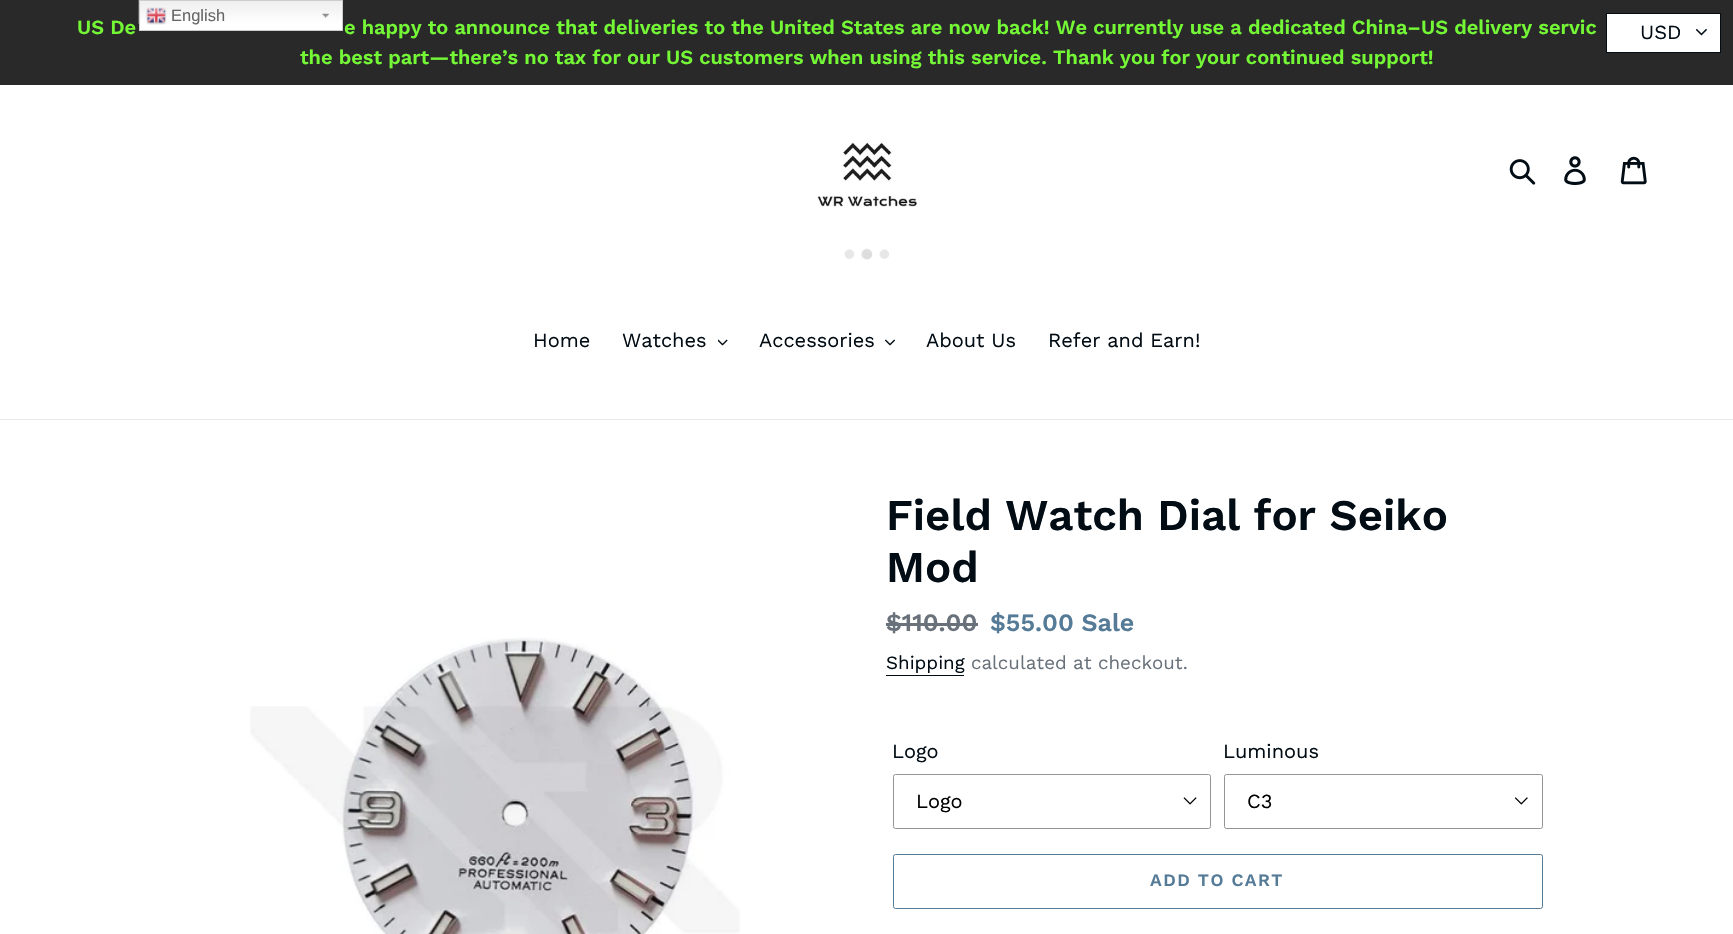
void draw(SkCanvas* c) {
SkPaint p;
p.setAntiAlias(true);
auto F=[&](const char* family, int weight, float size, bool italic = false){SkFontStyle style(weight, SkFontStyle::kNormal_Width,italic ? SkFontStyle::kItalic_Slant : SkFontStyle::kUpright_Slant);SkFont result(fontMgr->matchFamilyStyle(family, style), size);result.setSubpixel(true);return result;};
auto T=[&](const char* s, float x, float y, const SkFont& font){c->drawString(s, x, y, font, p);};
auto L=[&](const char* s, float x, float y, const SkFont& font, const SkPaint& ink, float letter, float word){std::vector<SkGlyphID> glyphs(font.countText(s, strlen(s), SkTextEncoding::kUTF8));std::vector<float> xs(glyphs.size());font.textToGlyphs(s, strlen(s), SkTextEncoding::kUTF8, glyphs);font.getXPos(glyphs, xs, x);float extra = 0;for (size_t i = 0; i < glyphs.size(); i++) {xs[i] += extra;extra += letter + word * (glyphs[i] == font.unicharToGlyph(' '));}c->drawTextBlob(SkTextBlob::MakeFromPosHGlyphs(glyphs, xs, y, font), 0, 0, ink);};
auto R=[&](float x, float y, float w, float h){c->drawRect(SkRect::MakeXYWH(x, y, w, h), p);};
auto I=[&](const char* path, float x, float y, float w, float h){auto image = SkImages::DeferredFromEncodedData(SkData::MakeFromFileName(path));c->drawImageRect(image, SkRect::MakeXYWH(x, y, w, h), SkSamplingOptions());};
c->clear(0xffffffff);
p.setColor(0xff292929);
R(0,0,1733,85);
p.setColor(0xffffffff);
R(140,1,202,29);
I("1.png",138,0,204,24);
I("2.png",322,13,7,5);
p.setStroke(true);
p.setStrokeWidth(1);
p.setColor(0xffcccccc);
c->drawRect(SkRect::MakeXYWH(139.5,.5,203,30),p);
I("3.png",146,7,21,18);
auto f1 = F("Liberation Sans",400,16.5);
p.setStroke(false);
p.setColor(0xff666666);
T("English",171,21,f1);
auto f2 = F("Work Sans",600,20);
p.setColor(0xff74f836);
T("US De",77,34,f2);
T("e happy to announce that deliveries to the United States are now back! We currently use a dedicated China–US delivery servic",344,34,f2);
T("the best part—there’s no tax for our US customers when using this service. Thank you for your continued support!",300,64,f2);
I("4.png",817,142,100,65);
I("5.png",1509,159,27,26);
I("6.png",1564,156,22,29);
I("7.png",1620,156,27,29);
I("8.png",844,248,45,12);
p.setColor(0xffe8e9eb);
R(0,419,1733,1);
auto f3 = F("Work Sans",400,20);
p.setColor(0xff010c14);
T("Home",533,347,f3);
T("Watches",622,347,f3);
I("9.png",718,339,10,7);
T("Accessories",759,347,f3);
I("10.png",885,339,10,7);
T("About Us",926,347,f3);
T("Refer and Earn!",1048,347,f3);
p.setColor(0xffffffff);
c->drawRect(SkRect::MakeXYWH(1606.5,13.5,114,39),p);
p.setStroke(true);
p.setColor(0xff010c14);
c->drawRect(SkRect::MakeXYWH(1606.5,13.5,114,39),p);
p.setStroke(false);
T("USD",1640,39,f3);
I("11.png",1695,28,12,8);
I("12.png",250,637,490,297);
auto f4 = F("Work Sans",600,43.75);
T("Field Watch Dial for Seiko",886,530,f4);
T("Mod",886,582,f4);
auto f5 = F("Work Sans",600,25);
p.setColor(0xff69727b);
T("$110.00",886,631,f5);
R(886,623,92,3);
p.setColor(0xff557b97);
T("$55.00 Sale",990,631,f5);
auto f6 = F("Work Sans",400,18.75);
p.setColor(0xff010c14);
T("Shipping",886,669,f6);
R(886,675,78,1);
p.setColor(0xff69727b);
T("calculated at checkout.",971,669,f6);
p.setColor(0xff010c14);
T("Logo",892,758,f3);
I("13.png",1183,797,14,8);
p.setStroke(true);
p.setColor(0xff949494);
c->drawRoundRect(SkRect::MakeXYWH(893.5,774.5,317,54),2,2,p);
p.setStroke(false);
p.setColor(0xff000000);
T("Logo",916,808,f3);
p.setColor(0xff010c14);
T("Luminous",1223,758,f3);
I("14.png",1514,797,14,8);
p.setStroke(true);
p.setColor(0xff949494);
c->drawRoundRect(SkRect::MakeXYWH(1224.5,774.5,318,54),2,2,p);
p.setStroke(false);
p.setColor(0xff000000);
T("C3",1247,808,f3);
p.setStroke(true);
p.setColor(0xff557b97);
c->drawRoundRect(SkRect::MakeXYWH(893.5,854.5,649,54),2,2,p);
auto f7 = F("Work Sans",600,17.5);
p.setStroke(false);
L("ADD TO CART",1150,886,f7,p,1.4,0);
}
